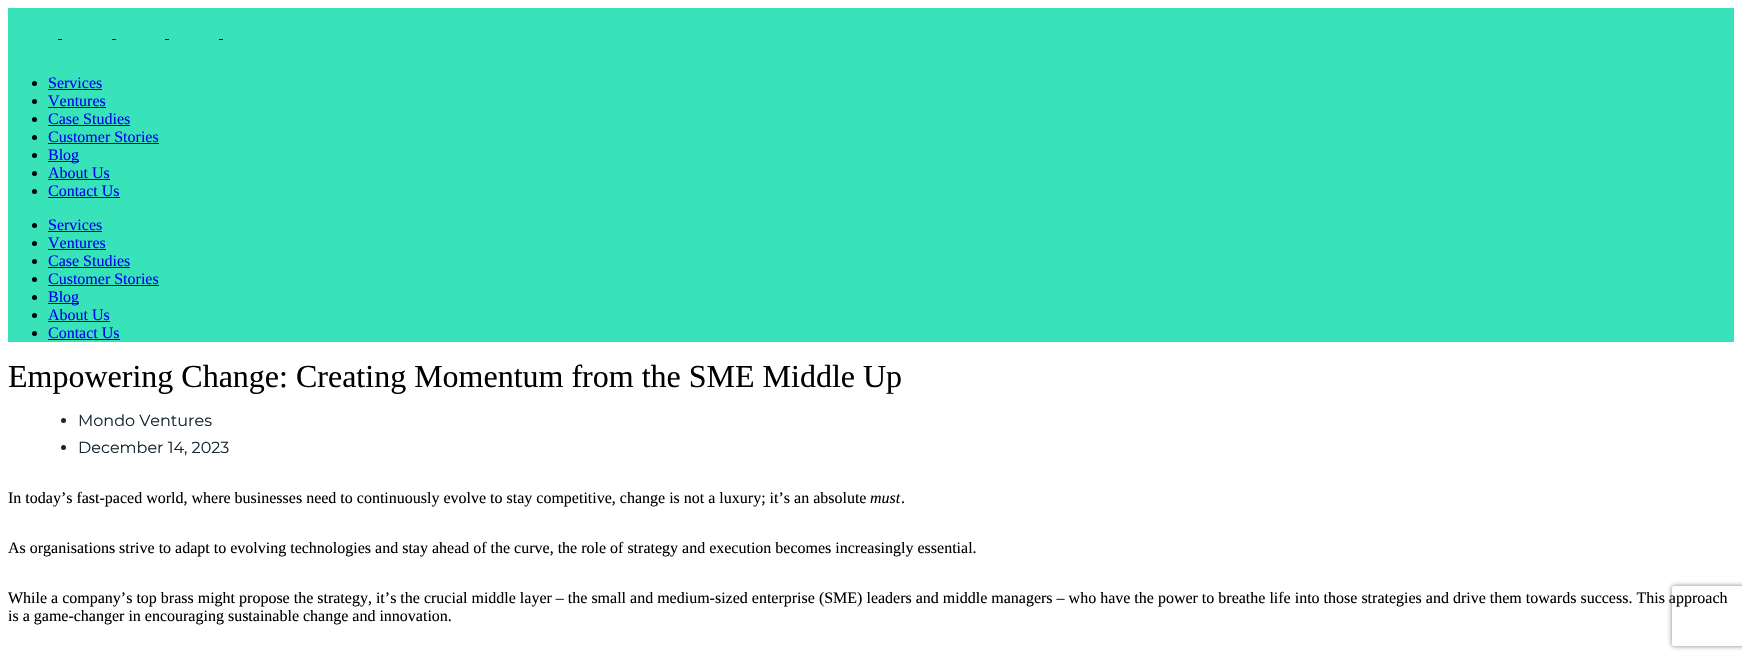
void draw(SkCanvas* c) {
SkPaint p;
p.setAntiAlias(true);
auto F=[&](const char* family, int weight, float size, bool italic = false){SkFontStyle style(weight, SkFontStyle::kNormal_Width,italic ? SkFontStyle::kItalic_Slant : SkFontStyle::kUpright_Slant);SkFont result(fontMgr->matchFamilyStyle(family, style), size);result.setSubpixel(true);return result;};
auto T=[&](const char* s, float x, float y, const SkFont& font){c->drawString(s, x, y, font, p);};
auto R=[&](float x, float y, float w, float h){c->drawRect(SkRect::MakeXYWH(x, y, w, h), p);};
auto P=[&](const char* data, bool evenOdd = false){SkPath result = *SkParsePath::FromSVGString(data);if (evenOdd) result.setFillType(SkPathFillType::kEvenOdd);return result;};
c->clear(0xffffffff);
p.setColor(0xff39e3b9);
R(8,8,1726,334);
p.setColor(0xff0000ee);
R(58,39,4,1);
R(112,39,4,1);
R(165,39,4,1);
R(219,39,4,1);
p.setColor(0xff000000);
c->drawCircle(34.5,83.5,2.5,p);
auto f1 = F("Liberation Serif",400,16);
p.setColor(0xff0000ee);
T("Services",48,88,f1);
R(48,89,54,1);
p.setColor(0xff000000);
c->drawCircle(34.5,101.5,2.5,p);
p.setColor(0xff0000ee);
T("Ventures",48,106,f1);
R(48,107,58,1);
p.setColor(0xff000000);
c->drawCircle(34.5,119.5,2.5,p);
p.setColor(0xff0000ee);
T("Case Studies",48,124,f1);
R(48,125,82,1);
p.setColor(0xff000000);
c->drawCircle(34.5,137.5,2.5,p);
p.setColor(0xff0000ee);
T("Customer Stories",48,142,f1);
R(48,143,111,1);
p.setColor(0xff000000);
c->drawCircle(34.5,155.5,2.5,p);
p.setColor(0xff0000ee);
R(48,161,31,1);
T("Blog",48,160,f1);
p.setColor(0xff000000);
c->drawCircle(34.5,173.5,2.5,p);
p.setColor(0xff0000ee);
T("About Us",48,178,f1);
R(48,179,62,1);
p.setColor(0xff000000);
c->drawCircle(34.5,191.5,2.5,p);
p.setColor(0xff0000ee);
T("Contact Us",48,196,f1);
R(48,197,72,1);
p.setColor(0xff000000);
c->drawCircle(34.5,225.5,2.5,p);
p.setColor(0xff0000ee);
T("Services",48,230,f1);
R(48,231,54,1);
p.setColor(0xff000000);
c->drawCircle(34.5,243.5,2.5,p);
p.setColor(0xff0000ee);
T("Ventures",48,248,f1);
R(48,249,58,1);
p.setColor(0xff000000);
c->drawCircle(34.5,261.5,2.5,p);
p.setColor(0xff0000ee);
T("Case Studies",48,266,f1);
R(48,267,82,1);
p.setColor(0xff000000);
c->drawCircle(34.5,279.5,2.5,p);
p.setColor(0xff0000ee);
T("Customer Stories",48,284,f1);
R(48,285,111,1);
p.setColor(0xff000000);
c->drawCircle(34.5,297.5,2.5,p);
p.setColor(0xff0000ee);
R(48,303,31,1);
T("Blog",48,302,f1);
p.setColor(0xff000000);
c->drawCircle(34.5,315.5,2.5,p);
p.setColor(0xff0000ee);
T("About Us",48,320,f1);
R(48,321,62,1);
p.setColor(0xff000000);
c->drawCircle(34.5,333.5,2.5,p);
p.setColor(0xff0000ee);
T("Contact Us",48,338,f1);
R(48,339,72,1);
auto f2 = F("Liberation Serif",400,32);
p.setColor(0xff000000);
T("Empowering Change: Creating Momentum from the SME Middle Up",8,387,f2);
p.setColor(0xff172831);
c->drawCircle(63.5,420.5,2.5,p);
auto f3 = F("Montserrat",400,16);
T("Mondo Ventures",78,426,f3);
c->drawCircle(63.5,447.5,2.5,p);
T("December 14, 2023",78,453,f3);
p.setColor(0xff000000);
T("In today’s fast-paced world, where businesses need to continuously evolve to stay competitive, change is not a luxury; it’s an absolute",8,503,f1);
auto f4 = F("Liberation Serif",400,16,true);
T("must",870,503,f4);
T(".",901,503,f1);
T("As organisations strive to adapt to evolving technologies and stay ahead of the curve, the role of strategy and execution becomes increasingly essential.",8,553,f1);
T("While a company’s top brass might propose the strategy, it’s the crucial middle layer – the small and medium-sized enterprise (SME) leaders and middle managers – who have the power to breathe life into those strategies and drive them towards success. This approach",8,603,f1);
T("is a game-changer in encouraging sustainable change and innovation.",8,621,f1);
c->save();
c->clipPath(P("M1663 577h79v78h-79zm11 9h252c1 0 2 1 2 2v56c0 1-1 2-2 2h-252c-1 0-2-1-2-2v-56c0-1 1-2 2-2z",true),true);
p.setColor(0xff808080);
p.setMaskFilter(SkMaskFilter::MakeBlur(kNormal_SkBlurStyle, 2.5));
c->drawRoundRect(SkRect::MakeXYWH(1672,586,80,60),2,2,p);
p.setMaskFilter(nullptr);
c->restore();
}
